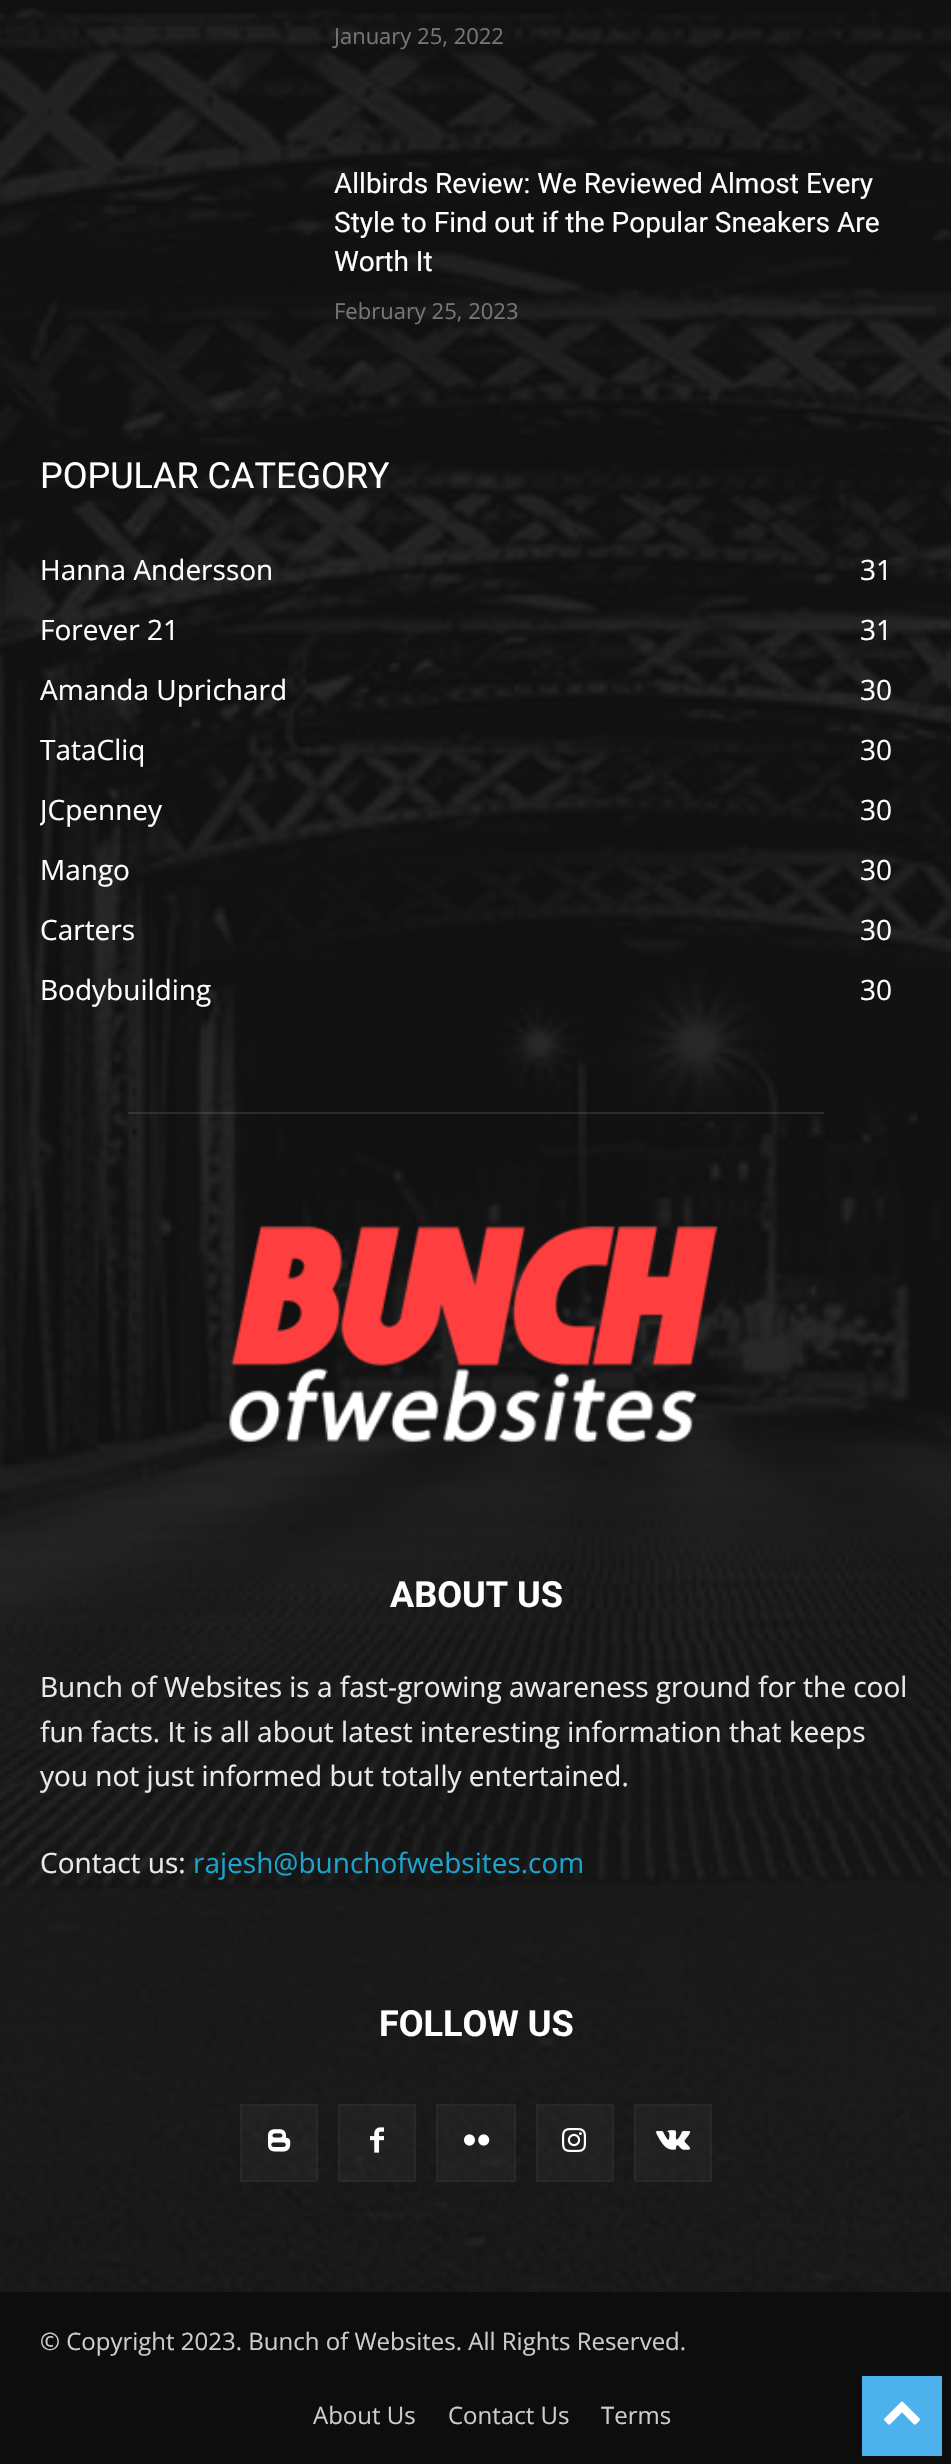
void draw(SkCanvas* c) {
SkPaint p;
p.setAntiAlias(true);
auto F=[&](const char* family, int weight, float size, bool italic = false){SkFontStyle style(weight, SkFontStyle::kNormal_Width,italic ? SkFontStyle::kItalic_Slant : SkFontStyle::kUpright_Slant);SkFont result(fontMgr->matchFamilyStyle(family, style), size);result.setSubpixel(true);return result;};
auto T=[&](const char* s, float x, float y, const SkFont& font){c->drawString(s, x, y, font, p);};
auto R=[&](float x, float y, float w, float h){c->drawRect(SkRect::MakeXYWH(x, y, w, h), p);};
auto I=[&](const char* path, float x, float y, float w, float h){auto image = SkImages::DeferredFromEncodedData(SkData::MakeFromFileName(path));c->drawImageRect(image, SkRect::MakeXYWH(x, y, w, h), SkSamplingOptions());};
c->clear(0xff111111);
I("1.png",0,8,951,2284);
auto f1 = F("Open Sans",400,22);
p.setColor(0xff767676);
T("January 25, 2022",334,44,f1);
auto f2 = F("Roboto",400,28);
p.setColor(0xffffffff);
T("Allbirds Review: We Reviewed Almost Every",334,193,f2);
T("Style to Find out if the Popular Sneakers Are",334,232,f2);
T("Worth It",334,271,f2);
p.setColor(0xff767676);
T("February 25, 2023",334,319,f1);
auto f3 = F("Roboto",400,36);
p.setColor(0xffffffff);
T("POPULAR CATEGORY",40,488,f3);
auto f4 = F("Open Sans",400,28);
T("Hanna Andersson",40,580,f4);
T("31",860,580,f4);
T("Forever 21",40,640,f4);
T("31",860,640,f4);
T("Amanda Uprichard",40,700,f4);
T("30",860,700,f4);
T("TataCliq",40,760,f4);
T("30",860,760,f4);
c->save();
c->clipRect(SkRect::MakeXYWH(40,444,872,604));
T("JCpenney",40,820,f4);
c->restore();
T("30",860,820,f4);
T("Mango",40,880,f4);
T("30",860,880,f4);
T("Carters",40,940,f4);
T("30",860,940,f4);
T("Bodybuilding",40,1000,f4);
T("30",860,1000,f4);
p.setColor(0x1affffff);
R(128,1112,696,2);
I("2.png",229,1225,489,219);
auto f5 = F("Roboto",700,36);
p.setColor(0xffffffff);
T("ABOUT US",390,1607,f5);
p.setColor(0xffeaeaea);
T("Bunch of Websites is a fast-growing awareness ground for the cool",40,1697,f4);
T("fun facts. It is all about latest interesting information that keeps",40,1742,f4);
T("you not just informed but totally entertained.",40,1786,f4);
T("Contact us:",40,1873,f4);
p.setColor(0xff1aa4ce);
T("rajesh@bunchofwebsites.com",193,1873,f4);
p.setColor(0xffffffff);
T("FOLLOW US",379,2036,f5);
p.setColor(0x08ffffff);
R(240,2104,78,78);
p.setStroke(true);
p.setStrokeWidth(2);
c->drawRect(SkRect::MakeXYWH(241,2105,76,76),p);
I("3.png",268,2129,23,23);
p.setStroke(false);
R(338,2104,78,78);
p.setStroke(true);
c->drawRect(SkRect::MakeXYWH(339,2105,76,76),p);
I("4.png",370,2127,14,26);
p.setStroke(false);
R(436,2104,80,78);
p.setStroke(true);
c->drawRect(SkRect::MakeXYWH(437,2105,78,76),p);
I("5.png",464,2134,26,12);
p.setStroke(false);
R(536,2104,78,78);
p.setStroke(true);
c->drawRect(SkRect::MakeXYWH(537,2105,76,76),p);
I("6.png",562,2128,24,24);
p.setStroke(false);
R(634,2104,78,78);
p.setStroke(true);
c->drawRect(SkRect::MakeXYWH(635,2105,76,76),p);
I("7.png",656,2130,35,20);
p.setStroke(false);
p.setColor(0xff0d0d0d);
R(0,2292,951,172);
auto f6 = F("Open Sans",400,24);
p.setColor(0xffcccccc);
T("© Copyright 2023. Bunch of Websites. All Rights Reserved.",40,2350,f6);
T("About Us",313,2424,f6);
T("Contact Us",448,2424,f6);
T("Terms",601,2424,f6);
p.setColor(0xff4db2ec);
R(862,2376,80,80);
I("8.png",884,2401,36,24);
}
